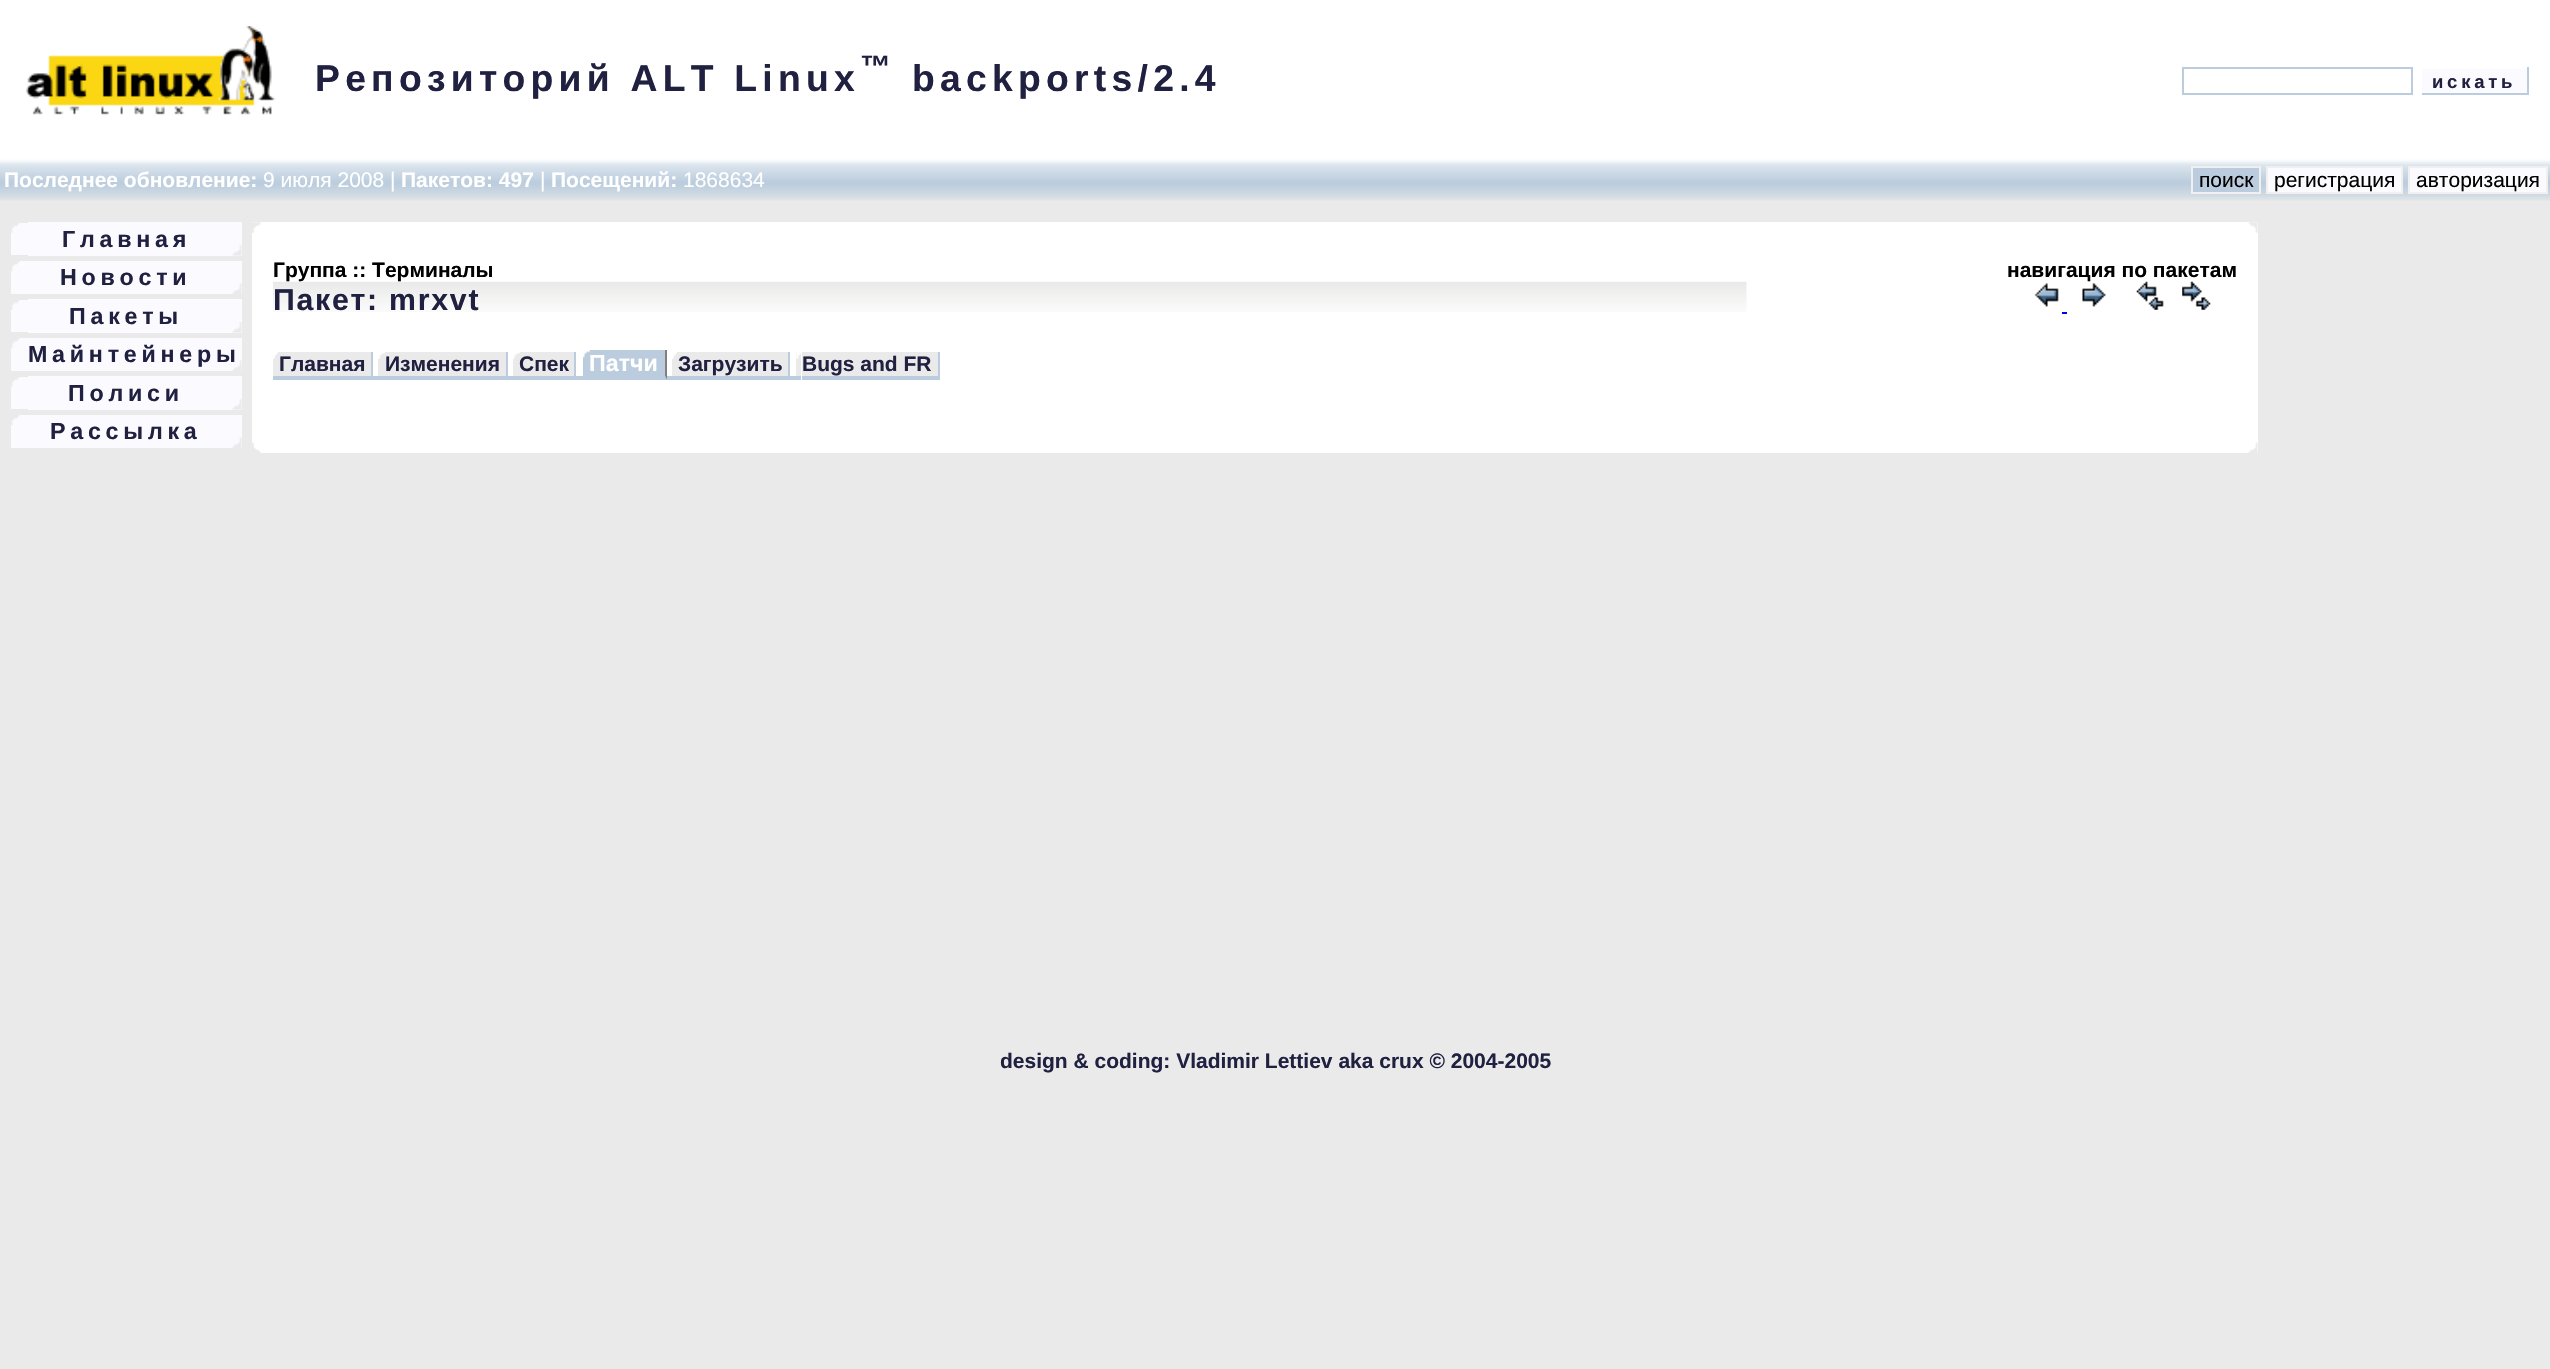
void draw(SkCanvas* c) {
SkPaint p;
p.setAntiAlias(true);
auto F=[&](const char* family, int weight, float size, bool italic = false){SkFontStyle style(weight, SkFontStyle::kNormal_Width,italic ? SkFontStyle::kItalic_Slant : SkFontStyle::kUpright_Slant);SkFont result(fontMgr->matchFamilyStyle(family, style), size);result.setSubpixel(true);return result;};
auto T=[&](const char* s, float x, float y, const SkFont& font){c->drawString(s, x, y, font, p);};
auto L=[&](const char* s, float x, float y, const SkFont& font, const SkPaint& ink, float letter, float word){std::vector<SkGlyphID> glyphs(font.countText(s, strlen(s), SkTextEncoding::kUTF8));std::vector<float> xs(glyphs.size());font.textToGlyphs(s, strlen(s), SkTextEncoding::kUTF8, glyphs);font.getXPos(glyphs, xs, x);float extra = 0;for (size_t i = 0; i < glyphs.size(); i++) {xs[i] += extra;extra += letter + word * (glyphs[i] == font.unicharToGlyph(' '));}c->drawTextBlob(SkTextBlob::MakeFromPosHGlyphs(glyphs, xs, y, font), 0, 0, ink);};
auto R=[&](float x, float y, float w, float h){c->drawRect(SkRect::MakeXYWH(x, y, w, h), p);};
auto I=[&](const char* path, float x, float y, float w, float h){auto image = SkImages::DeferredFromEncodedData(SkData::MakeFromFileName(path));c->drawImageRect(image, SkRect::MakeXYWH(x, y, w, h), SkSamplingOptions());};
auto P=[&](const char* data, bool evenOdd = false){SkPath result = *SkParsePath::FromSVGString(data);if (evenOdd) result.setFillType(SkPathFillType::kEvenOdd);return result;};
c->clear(0xffeaeaea);
p.setColor(0xffffffff);
R(0,0,2550,158);
I("1.png",26,26,250,89);
auto f1 = F("Liberation Sans",700,31);
p.setColor(0xff202040);
L("™",860,77,f1,p,5.25,0);
auto f2 = F("Liberation Sans",700,37.3);
L("Репозиторий ALT Linux",315,91,f2,p,5.25,0);
L("backports/2.4",912,91,f2,p,5.25,0);
p.setStroke(true);
p.setStrokeWidth(2);
p.setColor(0xffbaccdd);
c->drawRect(SkRect::MakeXYWH(2183,68,229,26),p);
p.setStroke(false);
p.setColor(0xfffafaff);
R(2422,69,105,24);
p.setColor(0xffbaccdd);
R(2527,67,2,28);
R(2420,93,109,2);
p.setColor(0xffffffff);
R(2420,93,2,2);
auto f3 = F("Liberation Sans",700,18.5);
p.setColor(0xff202040);
L("искать",2432,88,f3,p,3.75,0);
I("2.png",0,158,2550,43);
auto f4 = F("Liberation Sans",700,21);
p.setColor(0xffffffff);
T("Последнее обновление:",4,187,f4);
auto f5 = F("Liberation Sans",400,21);
T("9 июля 2008 |",263,187,f5);
T("Пакетов: 497",401,187,f4);
T("|",540,187,f5);
T("Посещений:",551,187,f4);
T("1868634",683,187,f5);
p.setColor(0xffbaccdd);
c->drawRect(SkRect::MakeXYWH(2192,167,68,26),p);
p.setStroke(true);
p.setColor(0xfff0f0f0);
c->drawRect(SkRect::MakeXYWH(2192,167,68,26),p);
p.setStroke(false);
p.setColor(0xff000000);
T("поиск",2199,187,f5);
p.setColor(0xfffafaff);
c->drawRect(SkRect::MakeXYWH(2267,167,135,26),p);
p.setStroke(true);
p.setColor(0xfff0f0f0);
c->drawRect(SkRect::MakeXYWH(2267,167,135,26),p);
p.setStroke(false);
p.setColor(0xff000000);
T("регистрация",2274,187,f5);
p.setColor(0xfffafaff);
c->drawRect(SkRect::MakeXYWH(2409,167,138,26),p);
p.setStroke(true);
p.setColor(0xfff0f0f0);
c->drawRect(SkRect::MakeXYWH(2409,167,138,26),p);
p.setStroke(false);
p.setColor(0xff000000);
T("авторизация",2416,187,f5);
p.setColor(0xfffafaff);
R(11,223,17,32);
I("3.png",11,223,9,10);
R(28,222,214,34);
I("4.png",232,245,10,11);
auto f6 = F("Liberation Sans",700,23.25);
p.setColor(0xff202040);
L("Главная",62,247,f6,p,4.75,0);
p.setColor(0xfffafaff);
R(11,261,231,33);
I("5.png",11,261,9,11);
I("6.png",232,283,10,11);
p.setColor(0xff202040);
L("Новости",60,285,f6,p,4.75,0);
p.setColor(0xfffafaff);
R(11,300,17,32);
I("7.png",11,300,9,10);
R(28,299,214,34);
I("4.png",232,322,10,11);
p.setColor(0xff202040);
L("Пакеты",69,324,f6,p,4.75,0);
p.setColor(0xfffafaff);
R(11,338,231,33);
I("5.png",11,338,9,11);
I("6.png",232,360,10,11);
p.setColor(0xff202040);
L("Майнтейнеры",28,362,f6,p,4.75,0);
p.setColor(0xfffafaff);
R(11,377,17,32);
I("7.png",11,377,9,10);
R(28,376,214,34);
I("4.png",232,399,10,11);
p.setColor(0xff202040);
L("Полиси",68,401,f6,p,4.75,0);
p.setColor(0xfffafaff);
R(11,415,231,33);
I("5.png",11,415,9,11);
I("6.png",232,437,10,11);
p.setColor(0xff202040);
L("Рассылка",50,439,f6,p,4.75,0);
p.setColor(0xffffffff);
R(252,222,2006,231);
I("8.png",252,222,9,11);
I("9.png",2248,222,10,11);
I("10.png",273,281,1474,31);
p.setColor(0xff000000);
T("Группа :: Терминалы",273,277,f4);
auto f7 = F("Liberation Sans",700,30.25);
p.setColor(0xff202040);
L("Пакет: mrxvt",273,310,f7,p,1.75,0);
p.setColor(0xff000000);
T("навигация по пакетам",2007,277,f4);
I("11.png",2034,283,25,24);
I("12.png",2082,283,24,24);
I("13.png",2136,281,28,29);
I("14.png",2182,281,29,29);
p.setColor(0xff0000ee);
R(2062,312,5,2);
p.setColor(0xffeaeaea);
R(273,352,5,28);
I("15.png",273,352,5,7);
R(278,352,88,24);
p.setColor(0xff202040);
T("Главная",279,371,f4);
p.setColor(0xffbaccdd);
R(273,376,93,4);
p.setColor(0xffeaeaea);
R(366,352,5,28);
p.setColor(0xffbaccdd);
R(371,352,2,28);
R(366,376,12,4);
p.setColor(0xffeaeaea);
R(378,352,7,28);
I("16.png",378,352,7,7);
R(385,352,121,24);
p.setColor(0xff202040);
T("Изменения",385,371,f4);
p.setColor(0xffbaccdd);
R(378,376,121,4);
R(506,352,2,28);
R(499,376,14,4);
p.setColor(0xffeaeaea);
R(513,352,7,28);
I("17.png",513,352,7,7);
R(520,352,49,24);
p.setColor(0xff202040);
T("Спек",519,371,f4);
p.setColor(0xffbaccdd);
R(513,376,56,4);
p.setColor(0xffeaeaea);
R(569,352,5,28);
p.setColor(0xffbaccdd);
R(574,352,2,28);
R(569,376,14,4);
R(583,350,84,30);
I("18.png",583,350,7,8);
p.setColor(0xffffffff);
T("Патчи",589,371,f6);
p.setColor(0xff808080);
c->drawPath(P("M667 350v30l-2-4v-26z"),p);
p.setColor(0xffbaccdd);
c->drawPath(P("M667 380h-9v-4h7z"),p);
p.setColor(0xffeaeaea);
R(672,352,5,28);
I("19.png",672,352,5,7);
R(677,352,105,24);
p.setColor(0xff202040);
T("Загрузить",678,371,f4);
p.setColor(0xffbaccdd);
R(672,376,110,4);
p.setColor(0xffeaeaea);
R(782,352,6,28);
p.setColor(0xffbaccdd);
R(788,352,2,28);
R(782,376,14,4);
p.setColor(0xffeaeaea);
R(796,352,5,28);
I("20.png",796,352,5,7);
R(802,352,136,24);
p.setColor(0xff202040);
T("Bugs and FR",802,371,f4);
p.setColor(0xffbaccdd);
R(796,376,5,4);
R(802,376,129,4);
R(938,352,2,28);
R(931,376,9,4);
R(667,376,5,4);
I("21.png",252,442,9,11);
I("22.png",2248,442,10,11);
p.setColor(0xff202040);
T("design & coding: Vladimir Lettiev aka crux © 2004-2005",1000,1068,f4);
}
